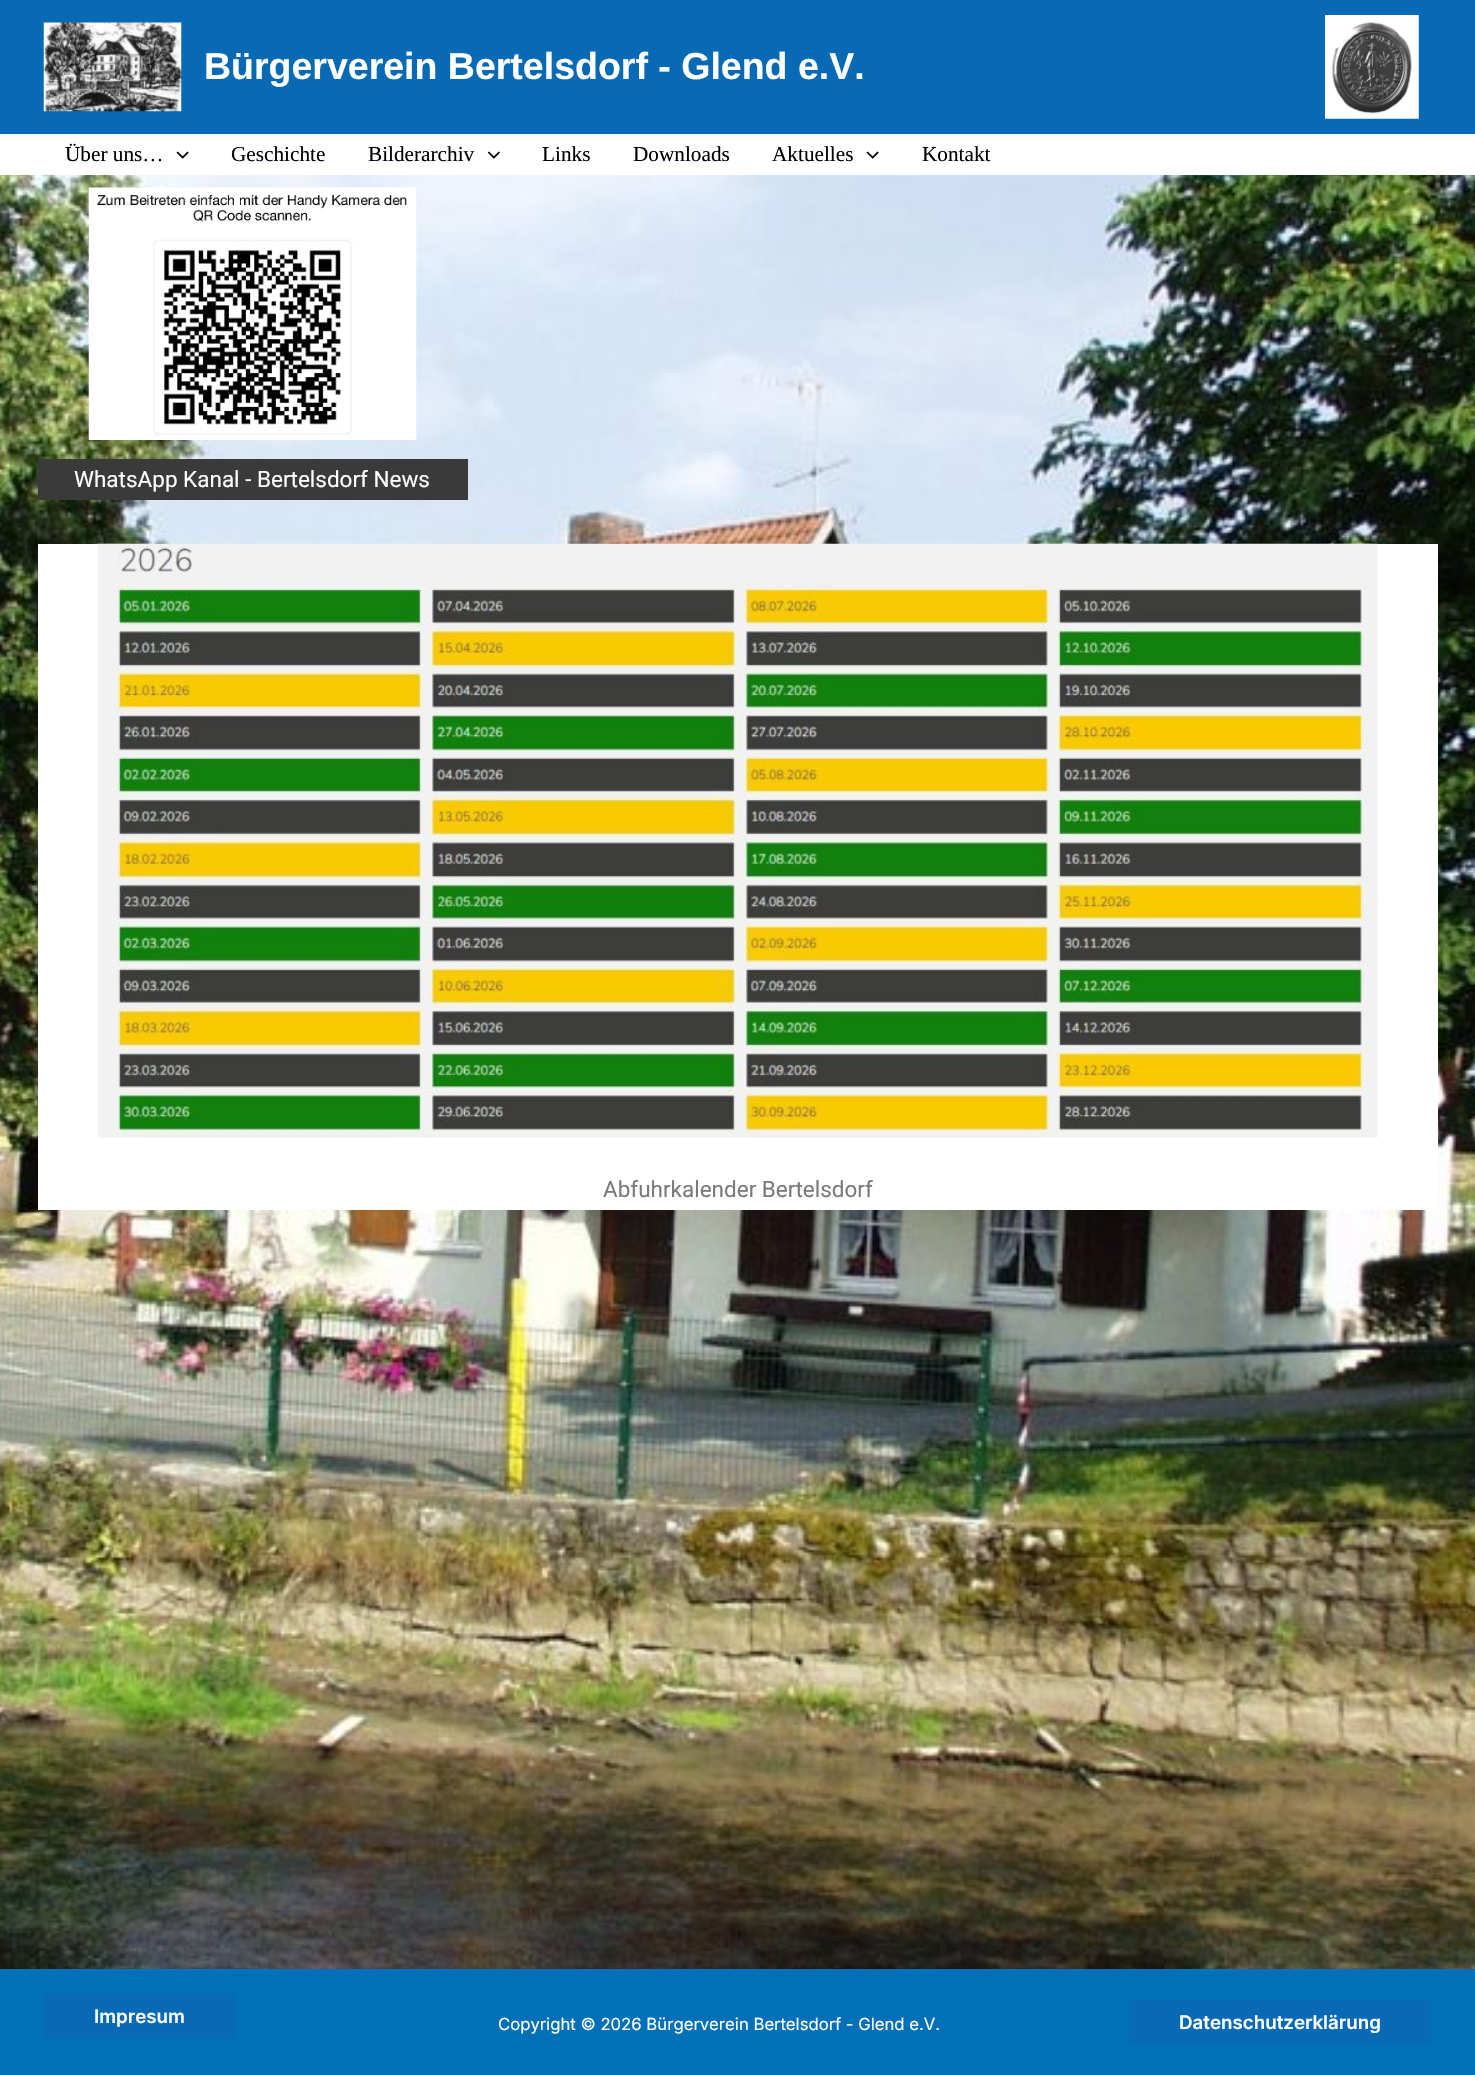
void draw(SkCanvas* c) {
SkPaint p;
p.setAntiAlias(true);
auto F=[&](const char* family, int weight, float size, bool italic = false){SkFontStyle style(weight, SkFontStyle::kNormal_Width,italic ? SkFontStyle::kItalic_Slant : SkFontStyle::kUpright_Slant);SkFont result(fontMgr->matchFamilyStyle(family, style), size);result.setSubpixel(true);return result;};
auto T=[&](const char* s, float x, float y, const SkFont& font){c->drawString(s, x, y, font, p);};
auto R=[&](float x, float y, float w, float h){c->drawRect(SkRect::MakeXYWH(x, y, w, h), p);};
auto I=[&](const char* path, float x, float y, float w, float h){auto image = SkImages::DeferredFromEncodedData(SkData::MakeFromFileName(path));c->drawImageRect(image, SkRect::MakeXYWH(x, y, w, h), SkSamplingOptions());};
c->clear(0xffffffff);
I("1.png",0,175,1475,1794);
p.setColor(0xff086ab5);
R(0,0,1475,134);
I("2.png",43,22,139,90);
auto f1 = F("Liberation Sans",700,37.5);
p.setColor(0xffffffff);
T("Bürgerverein Bertelsdorf - Glend e.V.",204,79,f1);
I("3.png",1325,15,94,104);
auto f2 = F("Liberation Serif",400,21.25);
p.setColor(0xff000000);
T("Über uns…",65,161,f2);
I("4.png",176,151,13,8);
T("Geschichte",231,161,f2);
T("Bilderarchiv",368,161,f2);
I("5.png",488,151,12,8);
T("Links",542,161,f2);
T("Downloads",633,161,f2);
T("Aktuelles",772,161,f2);
I("4.png",866,151,13,8);
T("Kontakt",922,161,f2);
I("6.png",88,187,329,253);
p.setColor(0xff3a3a3a);
R(38,459,430,41);
auto f3 = F("Roboto",400,22.5);
p.setColor(0xffffffff);
T("WhatsApp Kanal - Bertelsdorf News",74,487,f3);
R(38,544,1400,666);
I("7.png",97,543,1281,595);
p.setColor(0xff7a7a7a);
T("Abfuhrkalender Bertelsdorf",603,1197,f3);
p.setColor(0xff0170b9);
R(0,1969,1475,106);
p.setColor(0xff086ab5);
R(44,1994,191,44);
auto f4 = F("Inter",600,18.75);
p.setColor(0xffffffff);
T("Impresum",94,2023,f4);
auto f5 = F("Inter",400,16.7);
T("Copyright © 2026 Bürgerverein Bertelsdorf - Glend e.V.",498,2030,f5);
p.setColor(0xff086ab5);
R(1129,2000,302,44);
p.setColor(0xffffffff);
T("Datenschutzerklärung",1179,2029,f4);
}
